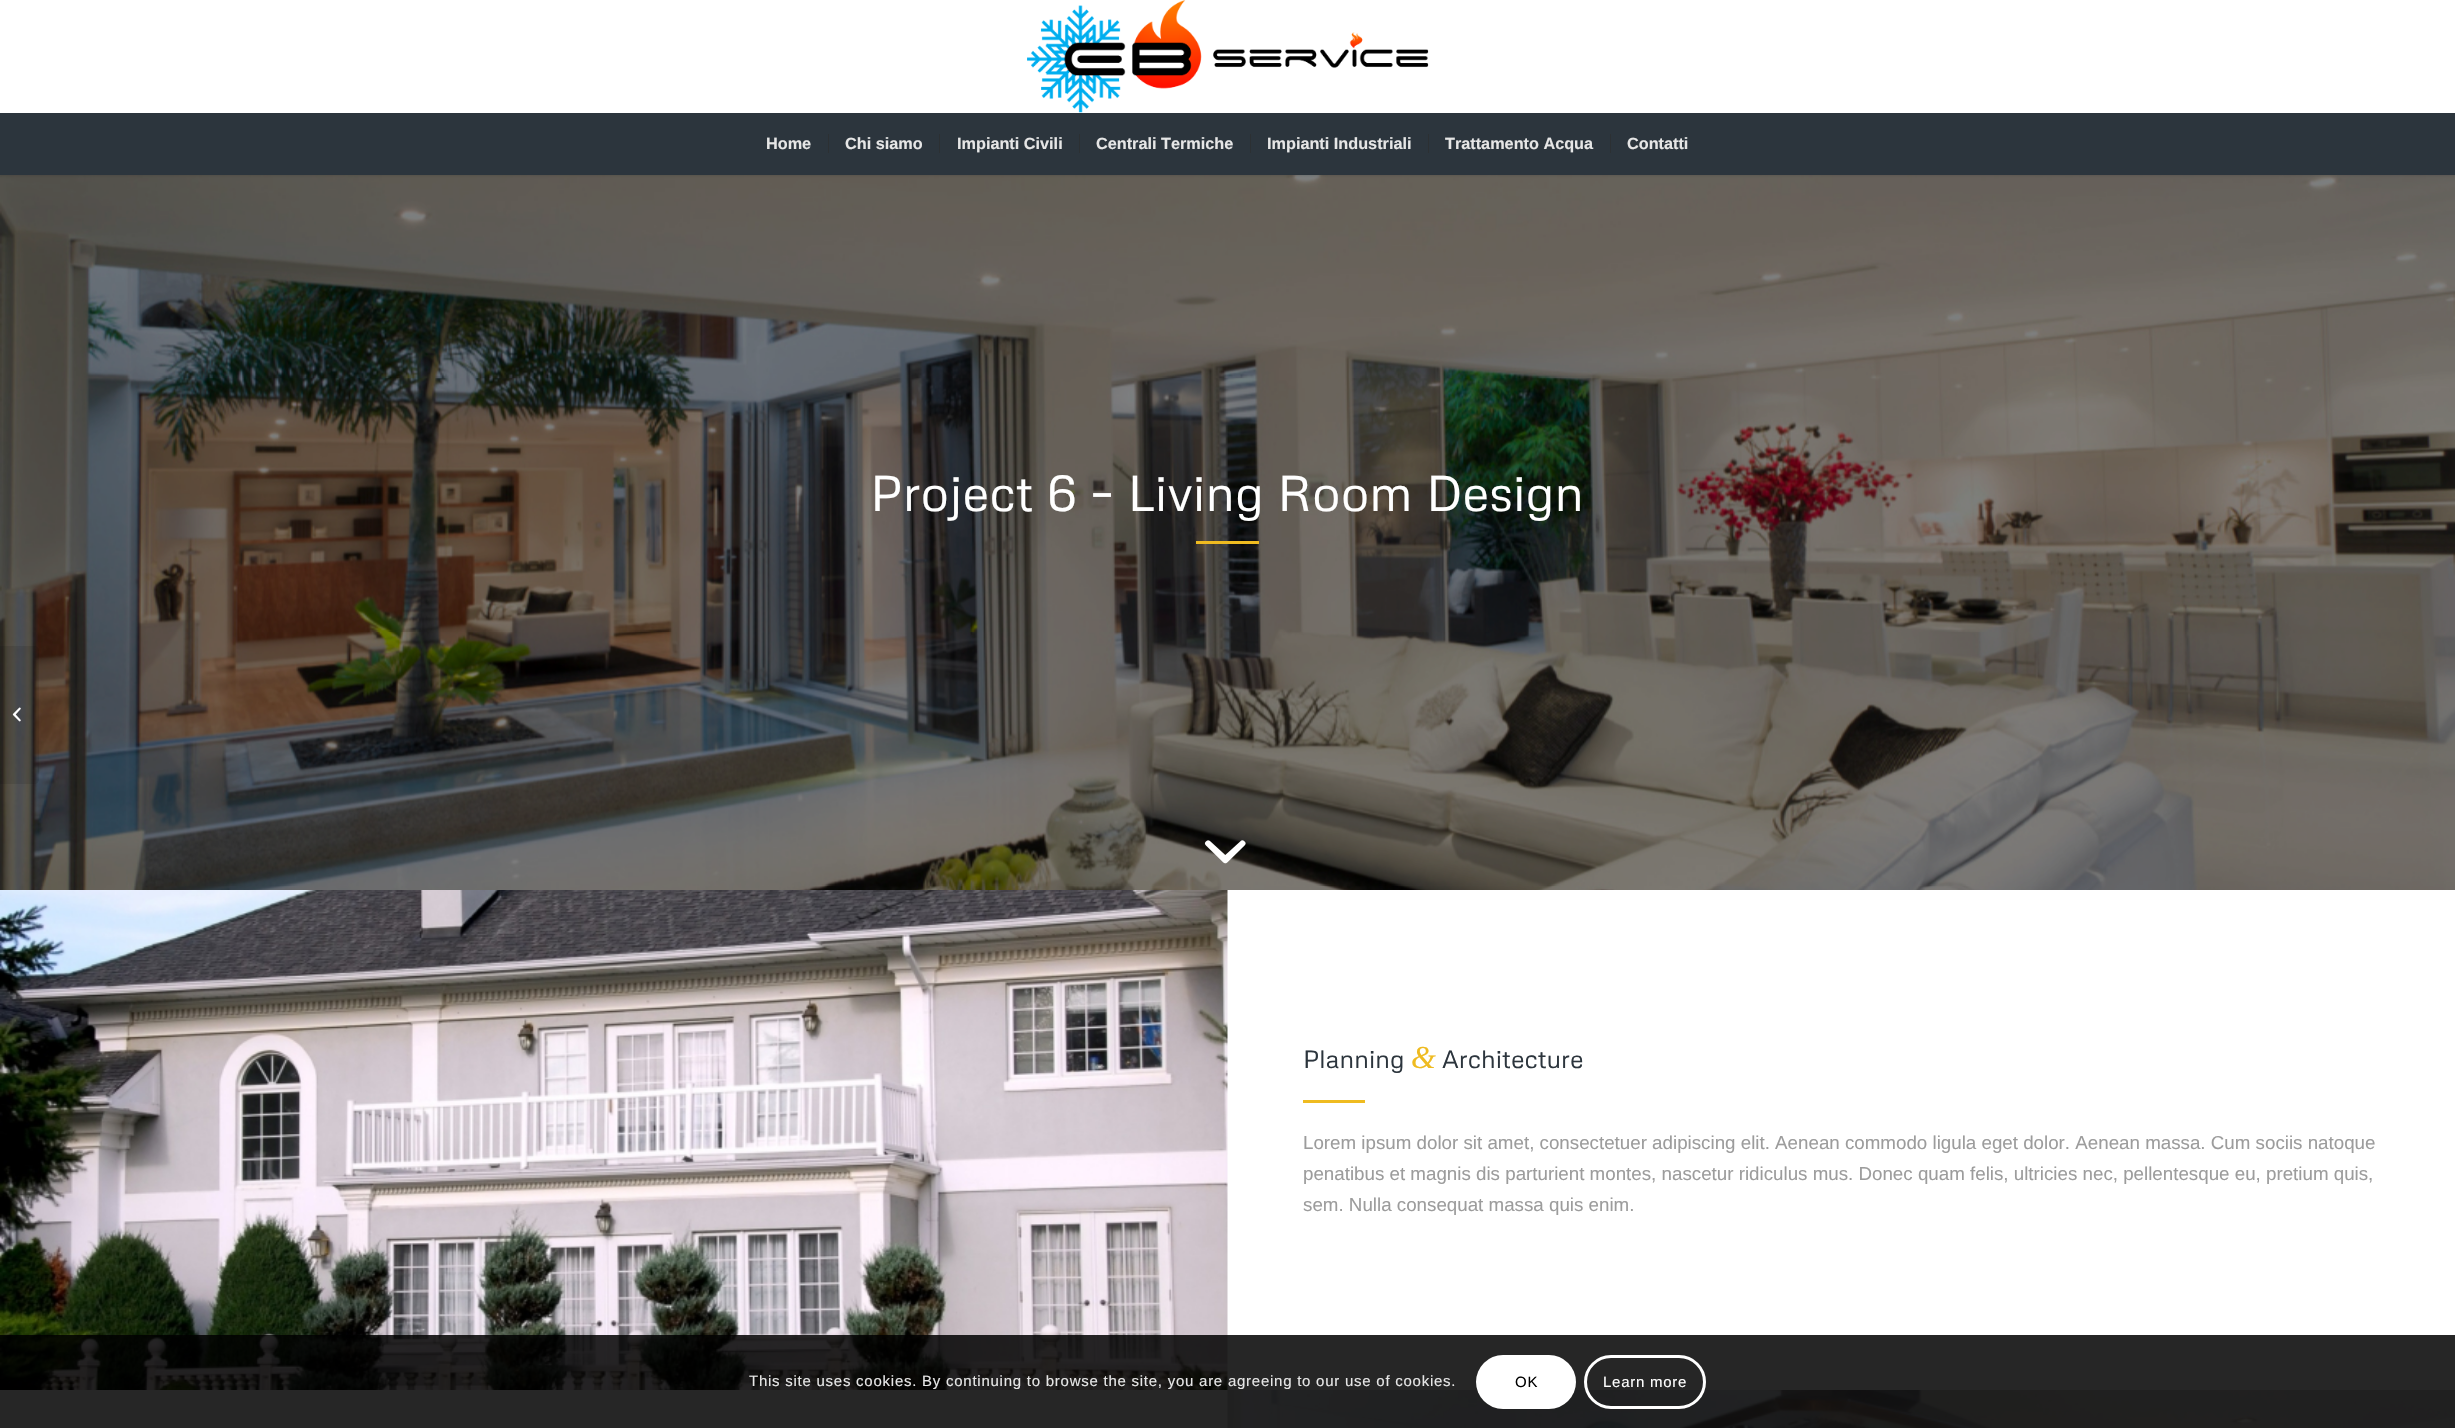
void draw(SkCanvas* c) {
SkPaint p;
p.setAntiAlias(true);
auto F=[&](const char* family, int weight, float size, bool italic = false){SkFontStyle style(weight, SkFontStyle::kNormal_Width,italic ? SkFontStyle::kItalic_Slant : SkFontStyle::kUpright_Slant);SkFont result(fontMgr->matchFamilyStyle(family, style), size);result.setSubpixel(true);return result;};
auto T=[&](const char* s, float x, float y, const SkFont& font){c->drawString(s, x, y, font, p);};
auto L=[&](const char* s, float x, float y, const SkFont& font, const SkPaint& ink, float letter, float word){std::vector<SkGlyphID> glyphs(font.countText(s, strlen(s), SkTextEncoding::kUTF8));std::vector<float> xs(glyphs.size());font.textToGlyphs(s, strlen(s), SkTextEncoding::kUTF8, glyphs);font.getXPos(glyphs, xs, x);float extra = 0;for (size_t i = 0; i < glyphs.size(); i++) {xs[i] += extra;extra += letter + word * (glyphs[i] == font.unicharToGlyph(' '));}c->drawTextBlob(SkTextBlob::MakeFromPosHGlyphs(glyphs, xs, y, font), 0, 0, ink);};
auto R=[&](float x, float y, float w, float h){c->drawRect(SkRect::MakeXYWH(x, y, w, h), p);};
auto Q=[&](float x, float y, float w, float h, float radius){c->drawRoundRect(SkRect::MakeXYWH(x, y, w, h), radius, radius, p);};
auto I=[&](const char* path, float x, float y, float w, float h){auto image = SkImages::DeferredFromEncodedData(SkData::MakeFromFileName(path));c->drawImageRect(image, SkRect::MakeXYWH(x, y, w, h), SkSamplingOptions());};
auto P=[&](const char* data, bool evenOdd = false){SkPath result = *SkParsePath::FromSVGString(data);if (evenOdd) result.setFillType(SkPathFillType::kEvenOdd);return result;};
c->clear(0xffffffff);
I("3.png",0,175,2455,715);
p.setColor(0x1a000000);
p.setMaskFilter(SkMaskFilter::MakeBlur(kNormal_SkBlurStyle, 1));
c->drawRect(SkRect::MakeXYWH(-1,-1,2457,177),p);
p.setMaskFilter(nullptr);
p.setColor(0xffffffff);
R(0,0,2455,113);
I("1.png",1027,0,402,113);
p.setColor(0xff2c353d);
R(0,113,2455,62);
auto f1 = F("Liberation Sans",700,16.25);
p.setColor(0xffe6e6e6);
T("Home",766,149,f1);
T("Chi siamo",845,149,f1);
p.setColor(0xff2c3033);
R(828,134,1,19);
p.setColor(0xffe6e6e6);
T("Impianti Civili",957,149,f1);
p.setColor(0xff2c3033);
R(939,134,1,19);
p.setColor(0xffe6e6e6);
T("Centrali Termiche",1096,149,f1);
p.setColor(0xff2c3033);
R(1079,134,1,19);
p.setColor(0xffe6e6e6);
T("Impianti Industriali",1267,149,f1);
p.setColor(0xff2c3033);
R(1250,134,1,19);
p.setColor(0xffe6e6e6);
T("Trattamento Acqua",1445,149,f1);
p.setColor(0xff2c3033);
R(1428,134,1,19);
p.setColor(0xffe6e6e6);
T("Contatti",1627,149,f1);
p.setColor(0xff2c3033);
R(1610,134,1,19);
p.setColor(0x1a000000);
c->drawPath(P("M0 646h34c3 0 5 2 5 5v128c0 3-2 5-5 5h-34z"),p);
I("2.png",12,707,9,15);
auto f2 = F("Metrophobic",400,50);
p.setColor(0xffffffff);
T("Project 6 – Living Room Design",870,511,f2);
p.setColor(0xffefbb20);
R(1196,541,63,3);
I("4.png",1204,840,42,24);
I("5.png",0,890,1228,500);
auto f3 = F("Metrophobic",400,25);
p.setColor(0xff2c353d);
T("Planning",1303,1068,f3);
auto f4 = F("Liberation Serif",400,32,true);
p.setColor(0xffefbb20);
T("&",1411,1068,f4);
p.setColor(0xff2c353d);
T("Architecture",1442,1068,f3);
p.setColor(0xffefbb20);
R(1303,1100,62,3);
auto f5 = F("Liberation Sans",400,18.75);
p.setColor(0xff9c9c9c);
T("Lorem ipsum dolor sit amet, consectetuer adipiscing elit. Aenean commodo ligula eget dolor. Aenean massa. Cum sociis natoque",1303,1149,f5);
T("penatibus et magnis dis parturient montes, nascetur ridiculus mus. Donec quam felis, ultricies nec, pellentesque eu, pretium quis,",1303,1180,f5);
T("sem. Nulla consequat massa quis enim.",1303,1211,f5);
I("6.png",1227,1390,1228,38);
p.setColor(0xd9000000);
R(0,1335,2455,93);
auto f6 = F("Liberation Sans",400,15);
p.setColor(0xffe6e6e6);
L("This site uses cookies. By continuing to browse the site, you are agreeing to our use of cookies.",749,1386,f6,p,.75,0);
p.setColor(0xffffffff);
Q(1476,1355,100,54,27);
p.setColor(0xff000000);
L("OK",1515,1387,f6,p,.75,0);
p.setStroke(true);
p.setStrokeWidth(3);
p.setColor(0xffffffff);
c->drawRoundRect(SkRect::MakeXYWH(1585.5,1356.5,119,51),25.5,25.5,p);
p.setStroke(false);
L("Learn more",1603,1387,f6,p,.75,0);
}
